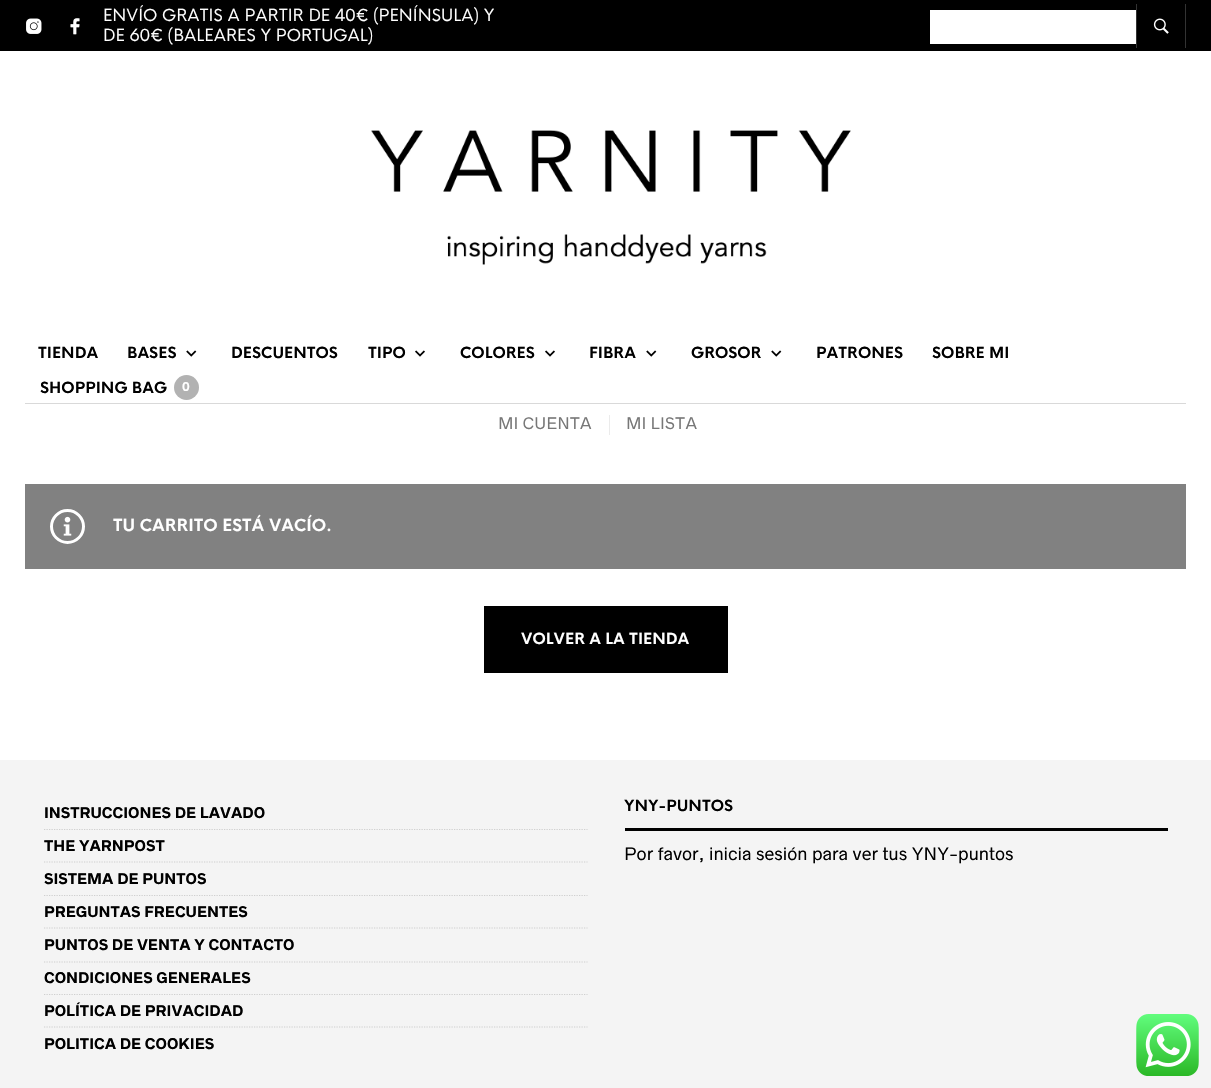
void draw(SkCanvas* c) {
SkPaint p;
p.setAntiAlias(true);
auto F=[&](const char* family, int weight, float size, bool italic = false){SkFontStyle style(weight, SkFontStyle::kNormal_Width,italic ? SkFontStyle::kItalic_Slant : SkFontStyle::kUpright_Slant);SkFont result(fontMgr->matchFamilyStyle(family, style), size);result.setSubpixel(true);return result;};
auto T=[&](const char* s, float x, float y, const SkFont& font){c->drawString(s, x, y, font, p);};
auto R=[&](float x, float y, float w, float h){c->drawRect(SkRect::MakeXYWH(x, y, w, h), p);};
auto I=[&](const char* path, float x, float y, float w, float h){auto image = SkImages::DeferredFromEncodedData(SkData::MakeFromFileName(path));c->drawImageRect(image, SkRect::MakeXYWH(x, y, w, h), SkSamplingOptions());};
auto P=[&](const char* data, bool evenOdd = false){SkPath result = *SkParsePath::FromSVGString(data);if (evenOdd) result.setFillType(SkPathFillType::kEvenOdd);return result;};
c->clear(0xffffffff);
p.setColor(0xff000000);
R(0,0,1211,51);
I("1.png",26,18,16,16);
I("2.png",70,18,10,17);
auto f1 = F("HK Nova",400,16.25);
p.setColor(0xffffffff);
T("ENVÍO GRATIS A PARTIR DE 40€ (PENÍNSULA) Y",103,21,f1);
T("DE 60€ (BALEARES Y PORTUGAL)",103,41,f1);
R(930,10,206,34);
p.setColor(0xff333333);
R(1185,4,1,44);
R(1136,4,1,44);
I("3.png",1153,18,16,16);
I("4.png",371,130,480,135);
p.setColor(0xffd9d9d9);
R(25,403,1161,1);
auto f2 = F("HK Nova",700,15);
p.setColor(0xff000000);
T("TIENDA",38,358,f2);
I("5.png",186,350,11,7);
T("BASES",127,358,f2);
T("DESCUENTOS",231,358,f2);
I("6.png",415,350,10,7);
T("TIPO",368,358,f2);
I("6.png",545,350,10,7);
T("COLORES",460,358,f2);
I("5.png",646,350,11,7);
T("FIBRA",589,358,f2);
I("5.png",771,350,11,7);
T("GROSOR",691,358,f2);
T("PATRONES",816,358,f2);
T("SOBRE MI",932,358,f2);
T("SHOPPING BAG",40,393,f2);
p.setColor(0xffb2b2b2);
c->drawCircle(186.5,387.5,12.5,p);
auto f3 = F("HK Nova",700,12);
p.setColor(0xffffffff);
T("0",182,391,f3);
auto f4 = F("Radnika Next",400,15);
p.setColor(0xff777777);
T("MI CUENTA",498,429,f4);
p.setColor(0xffebebeb);
R(609,415,1,20);
p.setColor(0xff777777);
T("MI LISTA",626,429,f4);
p.setColor(0xff818181);
R(25,484,1161,85);
I("7.png",63,516,9,20);
p.setStroke(true);
p.setStrokeWidth(3);
p.setColor(0xffffffff);
c->drawCircle(67.5,526.5,16,p);
auto f5 = F("HK Nova",700,16.25);
p.setStroke(false);
T("TU CARRITO ESTÁ VACÍO.",113,531,f5);
p.setColor(0xff000000);
R(484,606,244,67);
p.setColor(0xffffffff);
T("VOLVER A LA TIENDA",521,644,f2);
p.setColor(0xfff4f4f4);
R(0,760,1211,328);
p.setStroke(true);
p.setStrokeWidth(1.2);
p.setColor(0xffcfcfcf);
p.setPathEffect(SkDashPathEffect::Make({{1.25f,1.25f}}, 0));
c->drawPath(P("M44 829.5h543.5"),p);
p.setPathEffect(nullptr);
auto f6 = F("Radnika Next",700,13.75);
p.setStroke(false);
p.setColor(0xff000000);
T("INSTRUCCIONES DE LAVADO",44,818,f6);
p.setStroke(true);
p.setColor(0xffcfcfcf);
p.setPathEffect(SkDashPathEffect::Make({{1.25f,1.25f}}, 0));
c->drawPath(P("M44 862h543.5"),p);
p.setPathEffect(nullptr);
p.setStroke(false);
p.setColor(0xff000000);
T("THE YARNPOST",44,851,f6);
p.setStroke(true);
p.setColor(0xffcfcfcf);
p.setPathEffect(SkDashPathEffect::Make({{1.25f,1.25f}}, 0));
c->drawPath(P("M44 895.5h543.5"),p);
p.setPathEffect(nullptr);
p.setStroke(false);
p.setColor(0xff000000);
T("SISTEMA DE PUNTOS",44,884,f6);
p.setStroke(true);
p.setColor(0xffcfcfcf);
p.setPathEffect(SkDashPathEffect::Make({{1.25f,1.25f}}, 0));
c->drawPath(P("M44 928h543.5"),p);
p.setPathEffect(nullptr);
p.setStroke(false);
p.setColor(0xff000000);
T("PREGUNTAS FRECUENTES",44,917,f6);
p.setStroke(true);
p.setColor(0xffcfcfcf);
p.setPathEffect(SkDashPathEffect::Make({{1.25f,1.25f}}, 0));
c->drawPath(P("M44 962h543.5"),p);
p.setPathEffect(nullptr);
p.setStroke(false);
p.setColor(0xff000000);
T("PUNTOS DE VENTA Y CONTACTO",44,950,f6);
p.setStroke(true);
p.setColor(0xffcfcfcf);
p.setPathEffect(SkDashPathEffect::Make({{1.25f,1.25f}}, 0));
c->drawPath(P("M44 994.5h543.5"),p);
p.setPathEffect(nullptr);
p.setStroke(false);
p.setColor(0xff000000);
T("CONDICIONES GENERALES",44,983,f6);
p.setStroke(true);
p.setColor(0xffcfcfcf);
p.setPathEffect(SkDashPathEffect::Make({{1.25f,1.25f}}, 0));
c->drawPath(P("M44 1027h543.5"),p);
p.setPathEffect(nullptr);
p.setStroke(false);
p.setColor(0xff000000);
T("POLÍTICA DE PRIVACIDAD",44,1016,f6);
T("POLITICA DE COOKIES",44,1049,f6);
R(625,828,543,3);
T("YNY-PUNTOS",624,811,f2);
auto f7 = F("Radnika Next",400,16.25);
T("Por favor, inicia sesión para ver tus YNY-puntos",624,860,f7);
I("8.png",1136,1014,63,62);
}
